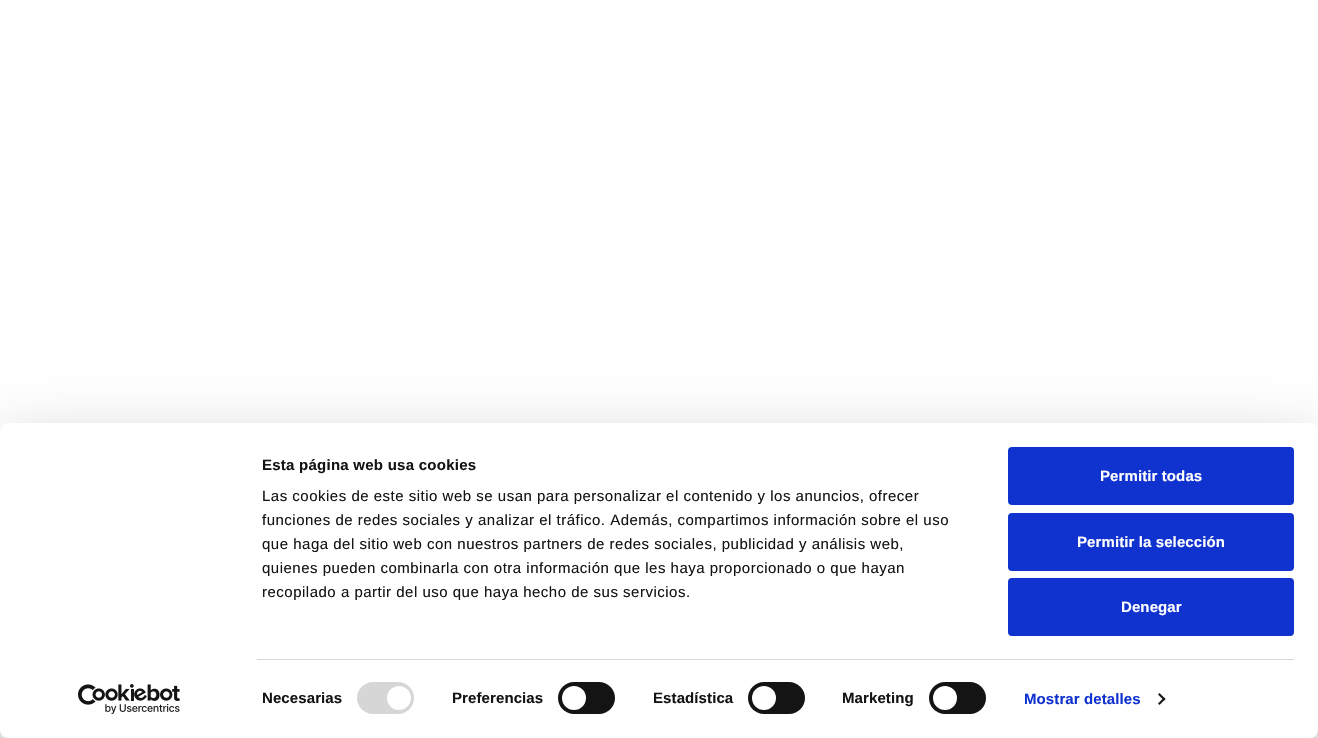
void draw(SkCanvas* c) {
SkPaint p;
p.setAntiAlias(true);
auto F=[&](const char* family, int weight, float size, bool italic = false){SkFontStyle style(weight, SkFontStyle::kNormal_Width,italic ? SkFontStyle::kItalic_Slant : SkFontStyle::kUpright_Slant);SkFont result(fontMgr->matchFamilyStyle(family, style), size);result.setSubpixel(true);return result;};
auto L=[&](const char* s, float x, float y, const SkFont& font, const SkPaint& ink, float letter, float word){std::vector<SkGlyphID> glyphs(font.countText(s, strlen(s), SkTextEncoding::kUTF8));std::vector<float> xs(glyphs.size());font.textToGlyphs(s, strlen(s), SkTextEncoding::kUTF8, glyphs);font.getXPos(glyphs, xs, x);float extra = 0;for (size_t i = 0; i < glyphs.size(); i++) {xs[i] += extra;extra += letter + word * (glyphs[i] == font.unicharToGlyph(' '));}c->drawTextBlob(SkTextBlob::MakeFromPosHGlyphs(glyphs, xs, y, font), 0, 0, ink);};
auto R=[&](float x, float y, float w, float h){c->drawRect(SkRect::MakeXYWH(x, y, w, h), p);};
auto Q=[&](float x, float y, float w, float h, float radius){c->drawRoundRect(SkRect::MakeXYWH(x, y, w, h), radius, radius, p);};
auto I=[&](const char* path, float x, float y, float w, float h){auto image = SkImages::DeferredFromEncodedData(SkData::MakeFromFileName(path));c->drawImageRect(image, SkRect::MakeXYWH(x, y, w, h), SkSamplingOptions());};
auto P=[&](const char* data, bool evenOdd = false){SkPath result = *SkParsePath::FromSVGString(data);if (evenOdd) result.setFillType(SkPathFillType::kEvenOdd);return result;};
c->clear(0xffffffff);
p.setColor(0x4d000000);
p.setMaskFilter(SkMaskFilter::MakeBlur(kNormal_SkBlurStyle, 35));
c->drawRoundRect(SkRect::MakeXYWH(0,453,1318,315),8,8,p);
p.setMaskFilter(nullptr);
p.setColor(0xffffffff);
Q(0,423,1318,315,8);
auto f1 = F("Liberation Sans",700,15);
p.setColor(0xff141414);
L("Esta página web usa cookies",262,470,f1,p,.25,0);
auto f2 = F("Liberation Sans",400,15);
L("Las cookies de este sitio web se usan para personalizar el contenido y los anuncios, ofrecer",262,501,f2,p,.5,0);
L("funciones de redes sociales y analizar el tráfico. Además, compartimos información sobre el uso",262,525,f2,p,.5,0);
L("que haga del sitio web con nuestros partners de redes sociales, publicidad y análisis web,",262,549,f2,p,.5,0);
L("quienes pueden combinarla con otra información que les haya proporcionado o que hayan",262,573,f2,p,.5,0);
L("recopilado a partir del uso que haya hecho de sus servicios.",262,597,f2,p,.5,0);
p.setColor(0xffd6d6d6);
R(257,659,1037,1);
p.setColor(0xff141414);
L("Necesarias",262,703,f1,p,.1,0);
p.setColor(0xffd6d6d6);
Q(357,682,57,32,16);
p.setColor(0xffffffff);
c->drawCircle(399,698,12,p);
p.setColor(0xff141414);
L("Preferencias",452,703,f1,p,.1,0);
Q(558,682,57,32,16);
p.setColor(0xffffffff);
c->drawCircle(574,698,12,p);
p.setColor(0xff141414);
L("Estadística",653,703,f1,p,.1,0);
Q(748,682,57,32,16);
p.setColor(0xffffffff);
c->drawCircle(764,698,12,p);
p.setColor(0xff141414);
L("Marketing",842,703,f1,p,.1,0);
Q(929,682,57,32,16);
p.setColor(0xffffffff);
c->drawCircle(945,698,12,p);
p.setColor(0xff1032cf);
L("Mostrar detalles",1024,704,f1,p,.1,0);
p.setColor(0xff141414);
c->drawPath(P("M1159.5 693l6 6l-1.5 1.5l-6-6z"),p);
c->drawPath(P("M1164 697.5l1.5 1.5l-6 6l-1.5-1.5z"),p);
p.setColor(0xff1032cf);
c->drawRoundRect(SkRect::MakeXYWH(1009,448,284,56),3,3,p);
p.setStroke(true);
p.setStrokeWidth(2);
c->drawRoundRect(SkRect::MakeXYWH(1009,448,284,56),3,3,p);
p.setStroke(false);
p.setColor(0xffffffff);
L("Permitir todas",1100,481,f1,p,.1,0);
p.setColor(0xff1032cf);
c->drawRoundRect(SkRect::MakeXYWH(1009,514,284,56),3,3,p);
p.setStroke(true);
c->drawRoundRect(SkRect::MakeXYWH(1009,514,284,56),3,3,p);
p.setStroke(false);
p.setColor(0xffffffff);
L("Permitir la selección",1077,547,f1,p,.1,0);
p.setColor(0xff1032cf);
c->drawRoundRect(SkRect::MakeXYWH(1009,579,284,56),3,3,p);
p.setStroke(true);
c->drawRoundRect(SkRect::MakeXYWH(1009,579,284,56),3,3,p);
p.setStroke(false);
p.setColor(0xffffffff);
L("Denegar",1121,612,f1,p,.1,0);
I("1.png",78,684,102,30);
}
